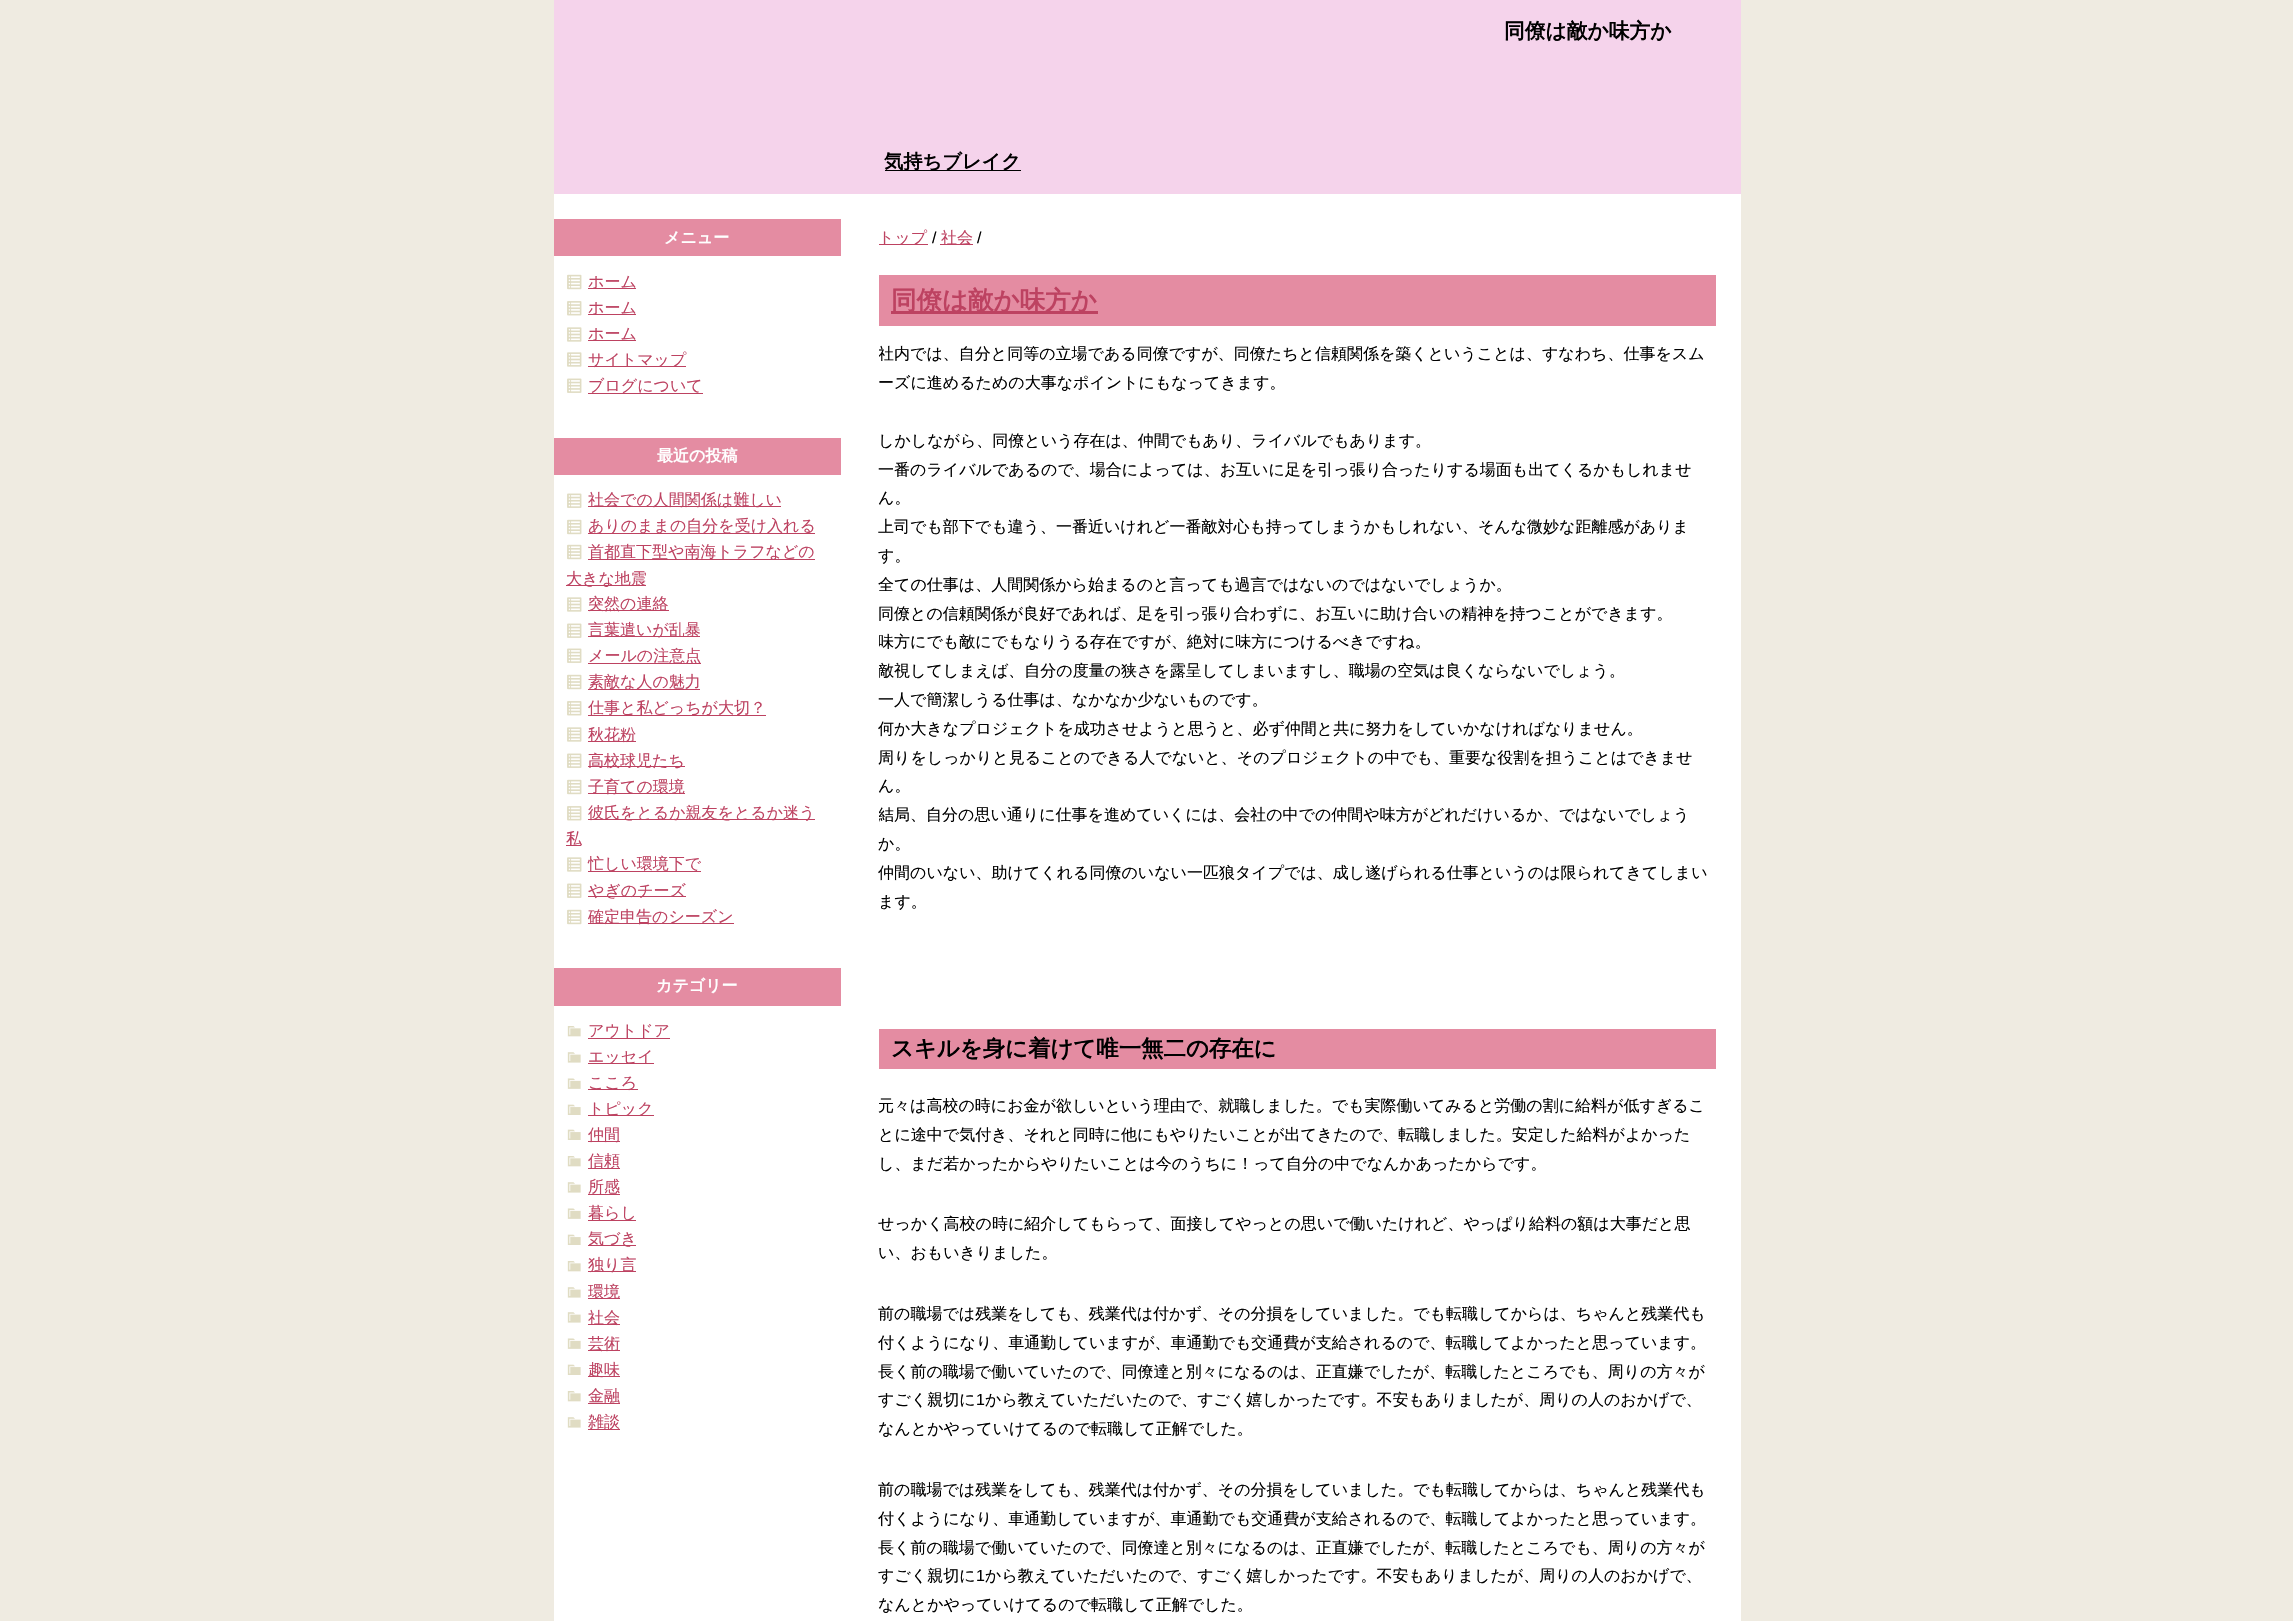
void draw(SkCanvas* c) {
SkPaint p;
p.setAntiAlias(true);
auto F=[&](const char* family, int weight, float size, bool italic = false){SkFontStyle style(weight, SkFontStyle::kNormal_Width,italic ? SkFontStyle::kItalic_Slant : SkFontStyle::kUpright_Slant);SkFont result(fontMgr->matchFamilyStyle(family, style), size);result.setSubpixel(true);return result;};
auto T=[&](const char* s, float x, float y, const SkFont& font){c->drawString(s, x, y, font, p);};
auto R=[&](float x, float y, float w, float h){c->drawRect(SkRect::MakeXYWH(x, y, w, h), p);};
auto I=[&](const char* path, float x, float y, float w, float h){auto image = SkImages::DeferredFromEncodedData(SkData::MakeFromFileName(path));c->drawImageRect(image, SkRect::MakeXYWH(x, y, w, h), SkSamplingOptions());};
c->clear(0xffefebe1);
p.setColor(0xffffffff);
R(554,194,1187,1427);
p.setColor(0xfff5d3eb);
R(554,0,1187,194);
auto f1 = F("WenQuanYi Zen Hei",700,20.75);
p.setColor(0xff000000);
T("同僚は敵か味方か",1504,38,f1);
R(885,170,136,1);
auto f2 = F("WenQuanYi Zen Hei",700,19.25);
T("気持ちブレイク",884,168,f2);
p.setColor(0xffe48ca2);
R(554,219,287,37);
auto f3 = F("WenQuanYi Zen Hei",700,16);
p.setColor(0xffffffff);
T("メニュー",664,243,f3);
I("1.png",567,274,15,16);
p.setColor(0xffbd4261);
R(588,288,48,1);
auto f4 = F("WenQuanYi Zen Hei",500,16);
T("ホーム",588,287,f4);
I("2.png",567,301,15,15);
R(588,314,48,1);
T("ホーム",588,313,f4);
I("3.png",567,327,15,15);
R(588,340,48,1);
T("ホーム",588,339,f4);
I("3.png",567,352,15,15);
R(588,366,98,1);
T("サイトマップ",588,365,f4);
I("4.png",567,378,15,15);
R(588,393,115,1);
T("ブログについて",588,391,f4);
p.setColor(0xffe48ca2);
R(554,438,287,37);
p.setColor(0xffffffff);
T("最近の投稿",657,461,f3);
I("4.png",567,493,15,15);
p.setColor(0xffbd4261);
R(588,506,193,1);
T("社会での人間関係は難しい",588,505,f4);
I("1.png",567,519,15,16);
R(588,533,227,1);
T("ありのままの自分を受け入れる",588,531,f4);
I("1.png",567,544,15,16);
R(588,559,227,1);
T("首都直下型や南海トラフなどの",588,557,f4);
R(566,585,80,1);
T("大きな地震",566,584,f4);
I("3.png",567,597,15,15);
R(588,610,81,1);
T("突然の連絡",588,609,f4);
I("4.png",567,623,15,15);
R(588,636,112,1);
T("言葉遣いが乱暴",588,635,f4);
I("4.png",567,648,15,15);
R(588,663,113,1);
T("メールの注意点",588,661,f4);
I("1.png",567,674,15,16);
R(588,689,112,1);
T("素敵な人の魅力",588,687,f4);
I("2.png",567,701,15,15);
R(588,715,178,1);
T("仕事と私どっちが大切？",588,713,f4);
I("3.png",567,727,15,15);
R(588,741,48,1);
T("秋花粉",588,740,f4);
I("4.png",567,753,15,15);
R(588,766,97,1);
T("高校球児たち",588,766,f4);
I("1.png",567,779,15,16);
R(588,793,97,1);
T("子育ての環境",588,792,f4);
I("2.png",567,806,15,15);
R(588,819,227,1);
T("彼氏をとるか親友をとるか迷う",588,818,f4);
R(566,845,15,1);
T("私",566,844,f4);
I("3.png",567,857,15,15);
R(588,871,113,1);
T("忙しい環境下で",588,869,f4);
I("4.png",567,883,15,15);
R(588,896,98,1);
T("やぎのチーズ",588,896,f4);
I("1.png",567,909,15,16);
R(588,923,146,1);
T("確定申告のシーズン",588,922,f4);
p.setColor(0xffe48ca2);
R(554,968,287,38);
p.setColor(0xffffffff);
T("カテゴリー",656,991,f3);
I("5.png",567,1026,14,11);
p.setColor(0xffbd4261);
R(588,1038,82,1);
T("アウトドア",588,1036,f4);
I("6.png",567,1052,14,11);
R(588,1063,66,1);
T("エッセイ",588,1062,f4);
I("7.png",567,1078,14,11);
R(588,1089,50,1);
T("こころ",588,1088,f4);
I("8.png",567,1104,14,11);
R(588,1115,66,1);
T("トピック",588,1114,f4);
I("8.png",567,1129,14,11);
R(588,1141,32,1);
T("仲間",588,1140,f4);
I("5.png",567,1156,14,11);
R(588,1168,32,1);
T("信頼",588,1166,f4);
I("6.png",567,1182,14,11);
T("所感",588,1192,f4);
R(588,1194,32,1);
I("7.png",567,1208,14,11);
R(588,1220,48,1);
T("暮らし",588,1218,f4);
I("8.png",567,1234,14,11);
R(588,1245,48,1);
T("気づき",588,1244,f4);
I("5.png",567,1261,14,11);
R(588,1271,48,1);
T("独り言",588,1270,f4);
I("6.png",567,1287,14,11);
R(588,1298,32,1);
T("環境",588,1297,f4);
I("6.png",567,1312,14,11);
R(588,1324,32,1);
T("社会",588,1323,f4);
I("7.png",567,1338,14,11);
R(588,1350,32,1);
T("芸術",588,1349,f4);
I("8.png",567,1364,14,11);
R(588,1376,32,1);
T("趣味",588,1375,f4);
I("5.png",567,1391,14,11);
T("金融",588,1401,f4);
R(588,1403,32,1);
I("6.png",567,1417,14,11);
R(588,1429,32,1);
T("雑談",588,1427,f4);
R(879,244,49,1);
T("トップ",878,243,f4);
auto f5 = F("Liberation Sans",400,16);
p.setColor(0xff000000);
T("/",932,243,f5);
p.setColor(0xffbd4261);
R(940,244,33,1);
T("社会",941,243,f4);
p.setColor(0xff000000);
T("/",977,243,f5);
p.setColor(0xffe48ca2);
R(879,275,837,51);
p.setColor(0xffbd4261);
R(891,311,207,3);
auto f6 = F("WenQuanYi Zen Hei",700,25.5);
T("同僚は敵か味方か",891,309,f6);
c->save();
c->clipRect(SkRect::MakeXYWH(879,219,837,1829));
p.setColor(0xff000000);
T("社内では、自分と同等の立場である同僚ですが、同僚たちと信頼関係を築くということは、すなわち、仕事をスム",878,359,f4);
c->restore();
T("ーズに進めるための大事なポイントにもなってきます。",878,388,f4);
T("しかしながら、同僚という存在は、仲間でもあり、ライバルでもあります。",878,446,f4);
T("一番のライバルであるので、場合によっては、お互いに足を引っ張り合ったりする場面も出てくるかもしれませ",878,475,f4);
T("ん。",878,503,f4);
T("上司でも部下でも違う、一番近いけれど一番敵対心も持ってしまうかもしれない、そんな微妙な距離感がありま",878,532,f4);
T("す。",878,561,f4);
T("全ての仕事は、人間関係から始まるのと言っても過言ではないのではないでしょうか。",878,590,f4);
T("同僚との信頼関係が良好であれば、足を引っ張り合わずに、お互いに助け合いの精神を持つことができます。",878,619,f4);
c->save();
c->clipRect(SkRect::MakeXYWH(879,219,837,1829));
T("味方にでも敵にでもなりうる存在ですが、絶対に味方につけるべきですね。",878,647,f4);
T("敵視してしまえば、自分の度量の狭さを露呈してしまいますし、職場の空気は良くならないでしょう。",878,676,f4);
c->restore();
T("一人で簡潔しうる仕事は、なかなか少ないものです。",878,705,f4);
T("何か大きなプロジェクトを成功させようと思うと、必ず仲間と共に努力をしていかなければなりません。",878,734,f4);
T("周りをしっかりと見ることのできる人でないと、そのプロジェクトの中でも、重要な役割を担うことはできませ",878,763,f4);
T("ん。",878,791,f4);
c->save();
c->clipRect(SkRect::MakeXYWH(879,219,837,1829));
T("結局、自分の思い通りに仕事を進めていくには、会社の中での仲間や味方がどれだけいるか、ではないでしょう",878,820,f4);
c->restore();
T("か。",878,849,f4);
T("仲間のいない、助けてくれる同僚のいない一匹狼タイプでは、成し遂げられる仕事というのは限られてきてしまい",878,878,f4);
T("ます。",878,907,f4);
p.setColor(0xffe48ca2);
R(879,1029,837,40);
auto f7 = F("WenQuanYi Zen Hei",700,22.4);
p.setColor(0xff000000);
T("スキルを身に着けて唯一無二の存在に",891,1056,f7);
T("元々は高校の時にお金が欲しいという理由で、就職しました。でも実際働いてみると労働の割に給料が低すぎるこ",878,1111,f4);
T("とに途中で気付き、それと同時に他にもやりたいことが出てきたので、転職しました。安定した給料がよかった",878,1140,f4);
T("し、まだ若かったからやりたいことは今のうちに！って自分の中でなんかあったからです。",878,1169,f4);
T("せっかく高校の時に紹介してもらって、面接してやっとの思いで働いたけれど、やっぱり給料の額は大事だと思",878,1229,f4);
T("い、おもいきりました。",878,1258,f4);
T("前の職場では残業をしても、残業代は付かず、その分損をしていました。でも転職してからは、ちゃんと残業代も",878,1319,f4);
T("付くようになり、車通勤していますが、車通勤でも交通費が支給されるので、転職してよかったと思っています。",878,1348,f4);
T("長く前の職場で働いていたので、同僚達と別々になるのは、正直嫌でしたが、転職したところでも、周りの方々が",878,1377,f4);
T("すごく親切に",878,1405,f4);
T("1",976,1405,f5);
T("から教えていただいたので、すごく嬉しかったです。不安もありましたが、周りの人のおかげで、",985,1405,f4);
T("なんとかやっていけてるので転職して正解でした。",878,1434,f4);
T("前の職場では残業をしても、残業代は付かず、その分損をしていました。でも転職してからは、ちゃんと残業代も",878,1495,f4);
T("付くようになり、車通勤していますが、車通勤でも交通費が支給されるので、転職してよかったと思っています。",878,1524,f4);
T("長く前の職場で働いていたので、同僚達と別々になるのは、正直嫌でしたが、転職したところでも、周りの方々が",878,1553,f4);
T("すごく親切に",878,1581,f4);
T("1",976,1581,f5);
T("から教えていただいたので、すごく嬉しかったです。不安もありましたが、周りの人のおかげで、",985,1581,f4);
T("なんとかやっていけてるので転職して正解でした。",878,1610,f4);
}
